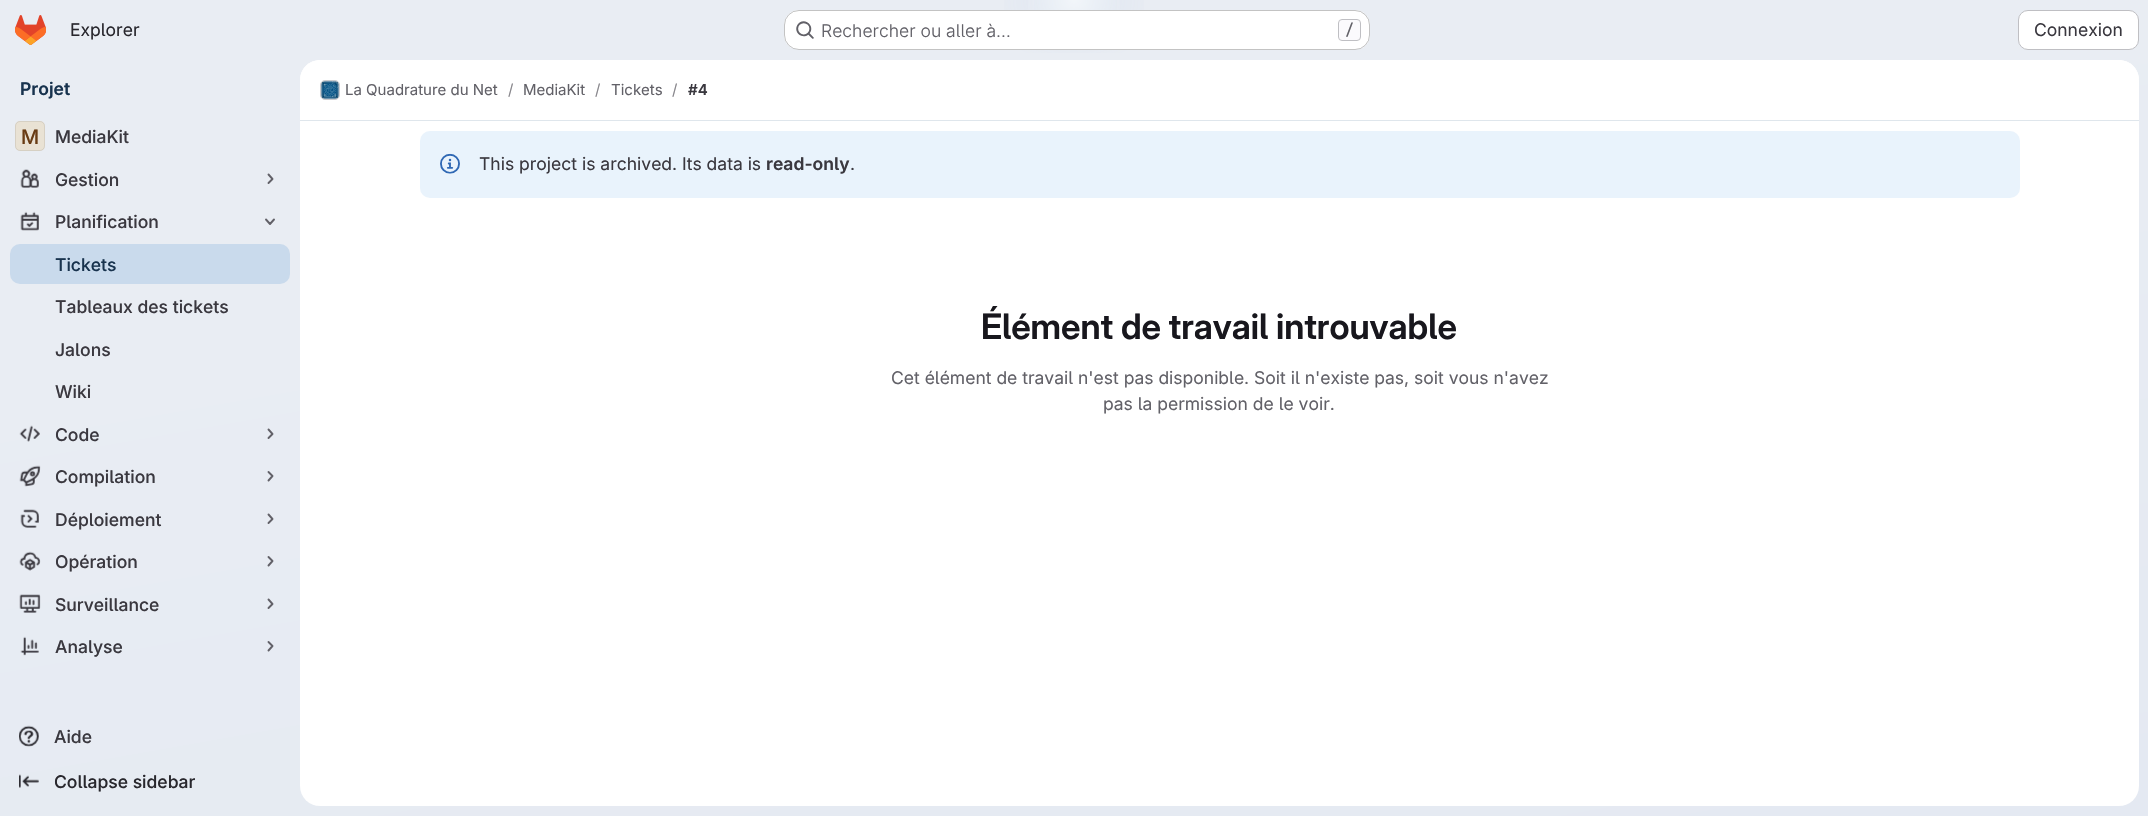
void draw(SkCanvas* c) {
SkPaint p;
p.setAntiAlias(true);
auto F=[&](const char* family, int weight, float size, bool italic = false){SkFontStyle style(weight, SkFontStyle::kNormal_Width,italic ? SkFontStyle::kItalic_Slant : SkFontStyle::kUpright_Slant);SkFont result(fontMgr->matchFamilyStyle(family, style), size);result.setSubpixel(true);return result;};
auto T=[&](const char* s, float x, float y, const SkFont& font){c->drawString(s, x, y, font, p);};
auto R=[&](float x, float y, float w, float h){c->drawRect(SkRect::MakeXYWH(x, y, w, h), p);};
auto Q=[&](float x, float y, float w, float h, float radius){c->drawRoundRect(SkRect::MakeXYWH(x, y, w, h), radius, radius, p);};
auto I=[&](const char* path, float x, float y, float w, float h){auto image = SkImages::DeferredFromEncodedData(SkData::MakeFromFileName(path));c->drawImageRect(image, SkRect::MakeXYWH(x, y, w, h), SkSamplingOptions());};
auto P=[&](const char* data, bool evenOdd = false){SkPath result = *SkParsePath::FromSVGString(data);if (evenOdd) result.setFillType(SkPathFillType::kEvenOdd);return result;};
c->clear(0xffffffff);
{
const SkColor colors[] = {0xffe4e9f2,0xffe9edf3};
const float stops[] = {0,.7};
const SkPoint ends[] = {{1177,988}, {972,-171}};
p.setShader(SkGradientShader::MakeLinear(ends, colors, stops, 2, SkTileMode::kClamp));
p.setAlpha(255);
}
R(0,0,2148,816);
{
const SkColor colors[] = {0xffdee5f1,0x00dee5f1};
const float stops[] = {0,.08};
SkMatrix m = SkMatrix::Translate(1074,0).preScale(1074,816);
p.setShader(SkGradientShader::MakeRadial({0, 0}, 1, colors, stops, 2, SkTileMode::kClamp, 0, &m));
p.setAlpha(255);
}
R(1004,0,140,53);
{
const SkColor colors[] = {0xffdee7f1,0x00dee7f1};
const float stops[] = {0,.06};
SkMatrix m = SkMatrix::Translate(1074,0).preScale(1074,816);
p.setShader(SkGradientShader::MakeRadial({0, 0}, 1, colors, stops, 2, SkTileMode::kClamp, 0, &m));
p.setAlpha(255);
}
R(1034,0,83,10);
{
const SkColor colors[] = {0x99ffffff,0x00ffffff};
const float stops[] = {0,.04};
p.setShader(SkGradientShader::MakeRadial({1074,0}, 1349, colors, stops, 2, SkTileMode::kClamp));
p.setAlpha(255);
}
R(1028,0,92,45);
I("1.png",15,15,31,30);
auto f1 = F("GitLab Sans",400,17.5);
p.setShader(nullptr);
p.setColor(0xff28272d);
T("Explorer",70,36,f1);
p.setColor(0xffffffff);
Q(784,10,586,40,15);
p.setStroke(true);
p.setStrokeWidth(1);
p.setColor(0x3d050506);
c->drawRoundRect(SkRect::MakeXYWH(784.5,10.5,585,39),14.5,14.5,p);
I("2.png",796,21,18,18);
auto f2 = F("GitLab Sans",300,17.5);
p.setStroke(false);
p.setColor(0xff626168);
T("Rechercher ou aller à…",821,37,f2);
p.setColor(0xfffbfafd);
c->drawRoundRect(SkRect::MakeXYWH(1338.5,19.5,22,21),3.5,3.5,p);
p.setStroke(true);
p.setColor(0xffbfbfc3);
c->drawRoundRect(SkRect::MakeXYWH(1338.5,19.5,22,21),3.5,3.5,p);
auto f3 = F("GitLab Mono",500,15);
p.setStroke(false);
p.setColor(0xff626168);
T("/",1345,35,f3);
p.setColor(0xffffffff);
c->drawRoundRect(SkRect::MakeXYWH(2018.5,10.5,120,39),9.5,9.5,p);
p.setStroke(true);
p.setColor(0xffbfbfc3);
c->drawRoundRect(SkRect::MakeXYWH(2018.5,10.5,120,39),9.5,9.5,p);
p.setStroke(false);
p.setColor(0xff3a383f);
T("Connexion",2034,36,f1);
auto f4 = F("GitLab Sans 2",600,17.5);
p.setColor(0xff18334e);
T("Projet",20,95,f4);
p.setColor(0xffe9e2d4);
Q(15,121,30,30,5);
p.setStroke(true);
p.setColor(0x14050506);
c->drawRoundRect(SkRect::MakeXYWH(15.5,121.5,29,29),4.5,4.5,p);
auto f5 = F("GitLab Sans 2",500,20);
p.setStroke(false);
p.setColor(0xff693c14);
T("M",21,144,f5);
auto f6 = F("GitLab Sans",500,17.5);
p.setColor(0xff3a383f);
T("MediaKit",55,143,f6);
I("3.png",20,169,19,19);
T("Gestion",55,186,f6);
p.setStroke(true);
p.setStrokeWidth(1.9);
p.setStrokeCap(SkPaint::kRound_Cap);
p.setStrokeJoin(SkPaint::kRound_Join);
p.setColor(0xff626168);
c->drawPath(P("M268.5 174.5l4 4.5l-4 4"),p);
I("4.png",20,211,19,20);
p.setStroke(false);
p.setColor(0xff3a383f);
T("Planification",55,228,f6);
p.setStroke(true);
p.setColor(0xff626168);
c->drawPath(P("M274 219.5l-4 4.5l-4-4.5"),p);
p.setStroke(false);
p.setColor(0xffc9daec);
Q(10,244,280,40,10);
p.setColor(0xff18334e);
T("Tickets",55,271,f6);
p.setColor(0xff3a383f);
T("Tableaux des tickets",55,313,f6);
T("Jalons",55,356,f6);
T("Wiki",55,398,f6);
I("5.png",19,425,21,17);
T("Code",55,441,f6);
p.setStroke(true);
p.setColor(0xff626168);
c->drawPath(P("M268.5 429.5l4 4.5l-4 4"),p);
I("6.png",19,465,22,22);
p.setStroke(false);
p.setColor(0xff3a383f);
T("Compilation",55,483,f6);
p.setStroke(true);
p.setColor(0xff626168);
c->drawPath(P("M268.5 472l4 4l-4 4.5"),p);
I("7.png",20,509,19,19);
p.setStroke(false);
p.setColor(0xff3a383f);
T("Déploiement",55,526,f6);
p.setStroke(true);
p.setColor(0xff626168);
c->drawPath(P("M268.5 514.5l4 4.5l-4 4"),p);
I("8.png",19,551,22,20);
p.setStroke(false);
p.setColor(0xff3a383f);
T("Opération",55,568,f6);
p.setStroke(true);
p.setColor(0xff626168);
c->drawPath(P("M268.5 557l4 4l-4 4.5"),p);
I("9.png",19,594,22,19);
p.setStroke(false);
p.setColor(0xff3a383f);
T("Surveillance",55,611,f6);
p.setStroke(true);
p.setColor(0xff626168);
c->drawPath(P("M268.5 599.5l4 4.5l-4 4"),p);
I("10.png",20,636,19,20);
p.setStroke(false);
p.setColor(0xff3a383f);
T("Analyse",55,653,f6);
p.setStroke(true);
p.setColor(0xff626168);
c->drawPath(P("M268.5 642l4 4l-4 4.5"),p);
I("11.png",19,725,20,22);
p.setStroke(false);
p.setColor(0xff3a383f);
T("Aide",54,743,f6);
I("12.png",19,774,20,14);
p.setColor(0xff28272d);
T("Collapse sidebar",54,788,f6);
p.setColor(0xffffffff);
Q(300,60,1839,746,20);
c->drawPath(P("M320 60h1799c11 0 20 9 20 20v41h-1839v-41c0-11 9-20 20-20z"),p);
p.setColor(0xffdfe6ec);
R(300,120,1839,1);
p.setStroke(true);
p.setStrokeWidth(1);
p.setStrokeCap(SkPaint::kButt_Cap);
p.setStrokeJoin(SkPaint::kMiter_Join);
p.setColor(0xffdcdcde);
c->drawRoundRect(SkRect::MakeXYWH(320.5,80.5,19,19),4.5,4.5,p);
I("13.png",321,81,18,18);
p.setColor(0x14050506);
c->drawRoundRect(SkRect::MakeXYWH(320.5,80.5,19,19),4.5,4.5,p);
auto f7 = F("GitLab Sans",400,15);
p.setStroke(false);
p.setColor(0xff626168);
T("La Quadrature du Net",345,95,f7);
p.setColor(0xff89888d);
T("/",508,95,f7);
p.setColor(0xff626168);
T("MediaKit",523,95,f7);
p.setColor(0xff89888d);
T("/",595,95,f7);
p.setColor(0xff626168);
T("Tickets",611,95,f7);
p.setColor(0xff89888d);
T("/",672,95,f7);
auto f8 = F("GitLab Sans 2",600,15);
p.setColor(0xff3a383f);
T("#4",688,95,f8);
p.setColor(0xffe9f3fc);
Q(420,131,1600,67,10);
I("14.png",440,153,20,21);
p.setColor(0xff3a383f);
T("This project is archived. Its data is",479,170,f1);
T("read-only",766,170,f4);
T(".",850,170,f1);
auto f9 = F("GitLab Sans",600,35);
p.setColor(0xff18171d);
T("Élément de travail introuvable",981,339,f9);
p.setColor(0xff626168);
T("Cet élément de travail n'est pas disponible. Soit il n'existe pas, soit vous n'avez",891,384,f1);
T("pas la permission de le voir.",1103,410,f1);
}
